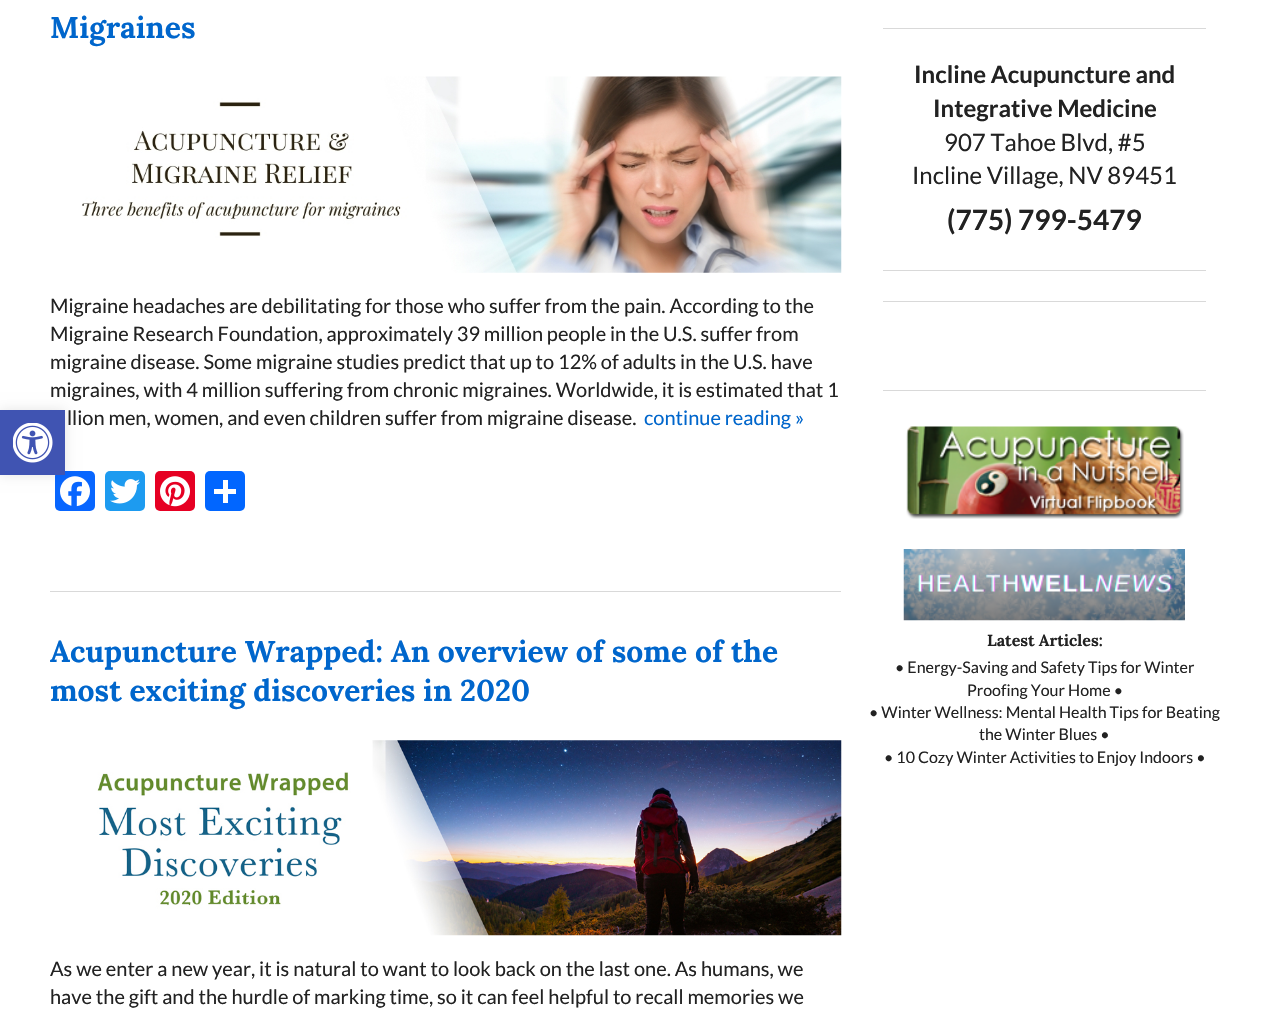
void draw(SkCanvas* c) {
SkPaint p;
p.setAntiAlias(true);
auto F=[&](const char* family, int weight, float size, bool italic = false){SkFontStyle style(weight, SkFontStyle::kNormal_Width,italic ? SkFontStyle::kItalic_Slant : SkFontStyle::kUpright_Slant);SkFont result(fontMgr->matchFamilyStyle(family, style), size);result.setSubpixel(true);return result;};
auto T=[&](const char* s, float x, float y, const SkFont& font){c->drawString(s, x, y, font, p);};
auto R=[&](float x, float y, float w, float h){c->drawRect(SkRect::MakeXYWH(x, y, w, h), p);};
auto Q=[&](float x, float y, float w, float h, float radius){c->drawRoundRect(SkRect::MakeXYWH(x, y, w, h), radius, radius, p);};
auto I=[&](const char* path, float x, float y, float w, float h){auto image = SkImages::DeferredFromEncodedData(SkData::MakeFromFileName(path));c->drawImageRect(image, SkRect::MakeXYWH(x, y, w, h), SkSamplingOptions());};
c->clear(0xffffffff);
p.setColor(0xff0866ff);
Q(55,471,40,40,5);
I("3.png",60,476,30,31);
p.setColor(0x1a000000);
p.setMaskFilter(SkMaskFilter::MakeBlur(kNormal_SkBlurStyle, 6));
c->drawRect(SkRect::MakeXYWH(0,410,65,65),p);
p.setMaskFilter(nullptr);
p.setColor(0xff4054b2);
R(0,410,65,65);
I("1.png",13,423,40,40);
p.setColor(0xffd9d9d9);
R(50,591,791,1);
auto f1 = F("Lora",700,30);
p.setColor(0xff0066cc);
T("Migraines",50,38,f1);
I("2.png",82,76,760,197);
auto f2 = F("Lato",400,20);
p.setColor(0xff222222);
T("Migraine headaches are debilitating for those who suffer from the pain. According to the",50,313,f2);
T("Migraine Research Foundation, approximately 39 million people in the U.S. suffer from",50,341,f2);
T("migraine disease. Some migraine studies predict that up to 12% of adults in the U.S. have",50,369,f2);
T("migraines, with 4 million suffering from chronic migraines. Worldwide, it is estimated that 1",50,397,f2);
T("llion men, women, and even children suffer from migraine disease.",67,425,f2);
p.setColor(0xff0066cc);
T("continue reading »",644,425,f2);
p.setColor(0xff1d9bf0);
Q(105,471,40,40,5);
I("4.png",110,479,30,25);
p.setColor(0xffe60023);
Q(155,471,40,40,5);
I("5.png",160,476,30,31);
p.setColor(0xff0166ff);
Q(205,471,40,40,5);
p.setColor(0xffffffff);
R(223,480,5,23);
R(214,489,22,5);
p.setColor(0xff0066cc);
T("Acupuncture Wrapped: An overview of some of the",50,662,f1);
T("most exciting discoveries in 2020",50,701,f1);
I("6.png",97,740,745,196);
p.setColor(0xff222222);
T("As we enter a new year, it is natural to want to look back on the last one. As humans, we",50,976,f2);
T("have the gift and the hurdle of marking time, so it can feel helpful to recall memories we",50,1004,f2);
p.setColor(0xffd9d9d9);
R(883,28,323,1);
auto f3 = F("Lato",700,24);
p.setColor(0xff222222);
T("Incline Acupuncture and",914,83,f3);
T("Integrative Medicine",933,117,f3);
auto f4 = F("Lato",400,24);
T("907 Tahoe Blvd, #5",944,151,f4);
T("Incline Village, NV 89451",912,184,f4);
auto f5 = F("Lato",700,28);
T("(775) 799-5479",947,230,f5);
p.setColor(0xffd9d9d9);
R(883,270,323,1);
R(883,301,323,1);
R(883,390,323,1);
I("7.png",906,426,278,93);
I("8.png",903,549,282,72);
auto f6 = F("Lora",700,16);
p.setColor(0xff222222);
T("Latest Articles:",987,646,f6);
auto f7 = F("Lato",400,16);
T("• Energy-Saving and Safety Tips for Winter",895,673,f7);
T("Proofing Your Home •",967,696,f7);
T("• Winter Wellness: Mental Health Tips for Beating",869,718,f7);
T("the Winter Blues •",979,740,f7);
T("• 10 Cozy Winter Activities to Enjoy Indoors •",884,763,f7);
}
